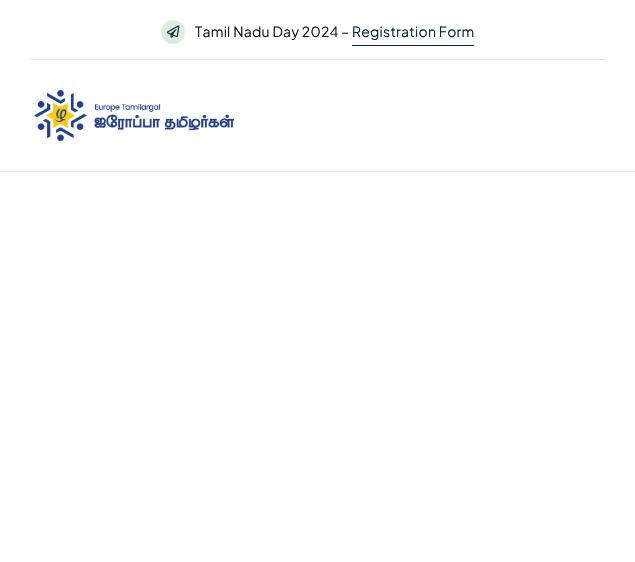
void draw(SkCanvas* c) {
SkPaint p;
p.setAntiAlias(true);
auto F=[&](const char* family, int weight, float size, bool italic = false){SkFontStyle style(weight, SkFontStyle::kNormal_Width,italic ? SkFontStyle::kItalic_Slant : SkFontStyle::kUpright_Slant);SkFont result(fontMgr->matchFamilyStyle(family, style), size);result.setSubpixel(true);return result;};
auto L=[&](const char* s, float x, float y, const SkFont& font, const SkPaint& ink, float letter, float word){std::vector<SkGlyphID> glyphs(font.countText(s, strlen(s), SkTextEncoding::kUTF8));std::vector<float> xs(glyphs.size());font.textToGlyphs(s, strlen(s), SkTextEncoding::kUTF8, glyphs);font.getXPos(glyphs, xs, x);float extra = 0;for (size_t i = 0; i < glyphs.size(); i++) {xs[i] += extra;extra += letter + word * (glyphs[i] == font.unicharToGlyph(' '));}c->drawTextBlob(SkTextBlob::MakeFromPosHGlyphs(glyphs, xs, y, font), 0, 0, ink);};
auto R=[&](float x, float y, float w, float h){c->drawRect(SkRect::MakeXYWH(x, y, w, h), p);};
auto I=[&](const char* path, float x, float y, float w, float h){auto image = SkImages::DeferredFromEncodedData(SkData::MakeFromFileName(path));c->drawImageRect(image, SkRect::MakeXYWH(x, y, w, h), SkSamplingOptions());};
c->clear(0xffffffff);
p.setColor(0xffe4e4e4);
R(30,59,575,1);
p.setColor(0xffdeecdf);
c->drawCircle(173,32,12,p);
I("1.png",167,25,13,13);
auto f1 = F("Plus Jakarta Sans",400,14);
p.setColor(0xff161616);
L("Tamil Nadu Day 2024 –",195,37,f1,p,.25,0);
p.setColor(0xff06283d);
L("Registration Form",352,37,f1,p,.25,0);
R(352,45,122,1);
p.setColor(0xffe4e4e4);
R(0,171,635,1);
I("2.png",34,90,200,51);
}
